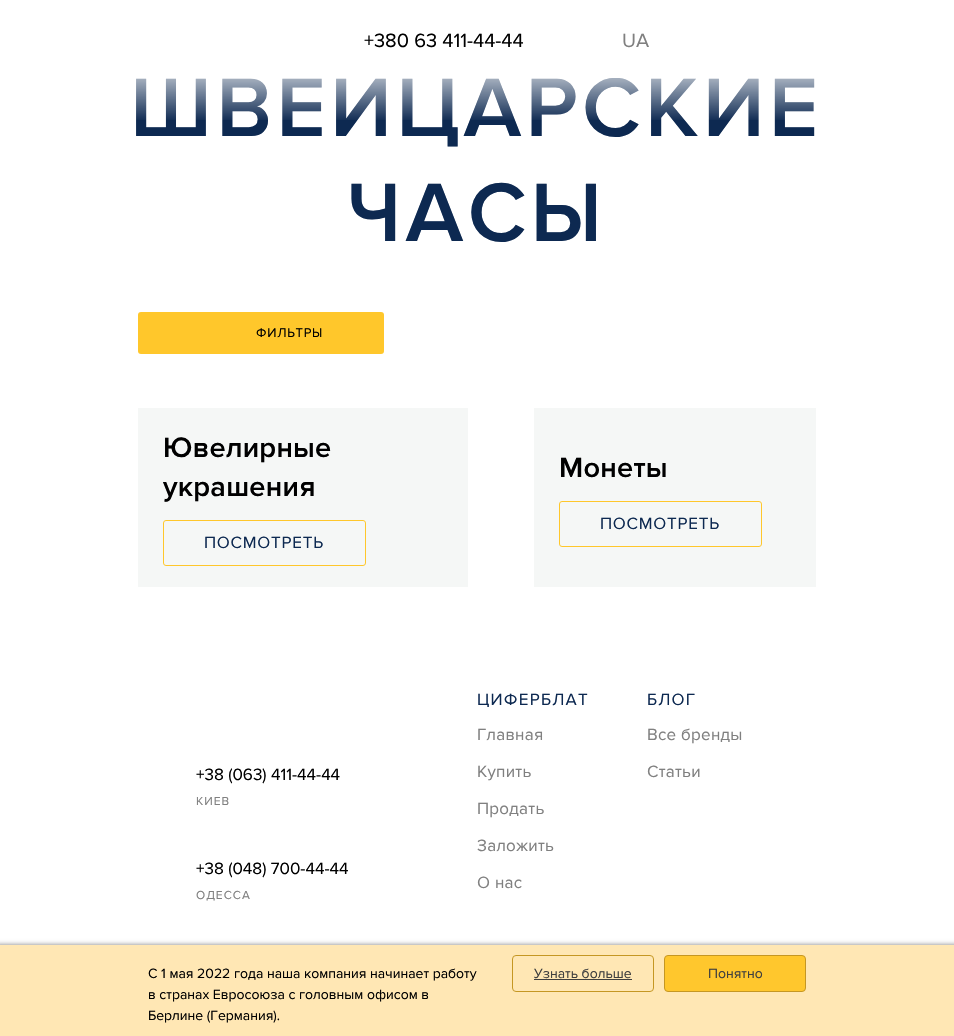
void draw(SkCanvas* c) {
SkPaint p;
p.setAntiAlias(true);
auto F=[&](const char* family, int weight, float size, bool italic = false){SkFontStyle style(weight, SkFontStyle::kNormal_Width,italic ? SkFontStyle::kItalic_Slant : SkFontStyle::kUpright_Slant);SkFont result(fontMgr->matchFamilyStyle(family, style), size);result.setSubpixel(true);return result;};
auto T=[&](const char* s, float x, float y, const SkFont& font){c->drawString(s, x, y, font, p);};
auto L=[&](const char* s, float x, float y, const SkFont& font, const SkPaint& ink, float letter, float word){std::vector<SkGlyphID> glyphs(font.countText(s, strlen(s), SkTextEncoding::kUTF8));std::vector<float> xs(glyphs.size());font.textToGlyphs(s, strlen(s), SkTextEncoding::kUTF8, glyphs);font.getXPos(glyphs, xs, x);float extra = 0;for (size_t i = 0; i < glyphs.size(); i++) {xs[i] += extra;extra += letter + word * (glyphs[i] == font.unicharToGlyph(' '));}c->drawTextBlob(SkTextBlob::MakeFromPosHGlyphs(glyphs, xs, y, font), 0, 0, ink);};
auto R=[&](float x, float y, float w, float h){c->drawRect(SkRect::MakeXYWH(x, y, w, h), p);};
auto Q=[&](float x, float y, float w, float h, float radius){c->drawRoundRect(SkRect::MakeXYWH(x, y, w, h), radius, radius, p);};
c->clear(0xffffffff);
auto f1 = F("Proxima Nova",600,86);
p.setColor(0xff0d2951);
L("ШВЕЙЦАРСКИЕ",130,136,f1,p,4.25,0);
p.setColor(0xffffffff);
R(346,64,275,14);
auto f2 = F("Proxima Nova",400,20);
p.setColor(0xff000000);
T("+380 63 411-44-44",364,47,f2);
p.setColor(0xff808080);
T("UA",622,47,f2);
p.setColor(0xff0d2951);
L("ЧАСЫ",347,241,f1,p,4.25,0);
{
const SkColor colors[] = {0x00ffffff,0xffffffff};
const float stops[] = {0,1};
const SkPoint ends[] = {{477,122}, {477,52}};
p.setShader(SkGradientShader::MakeLinear(ends, colors, stops, 2, SkTileMode::kClamp));
p.setAlpha(255);
}
R(136,78,680,42);
p.setShader(nullptr);
p.setColor(0xffffc72b);
Q(138,312,246,42,3);
auto f3 = F("Proxima Nova",400,13);
p.setColor(0xff000000);
L("ФИЛЬТРЫ",256,337,f3,p,.75,0);
p.setColor(0xfff5f7f6);
R(138,408,330,179);
auto f4 = F("Proxima Nova",600,29);
p.setColor(0xff000000);
L("Ювелирные",163,457,f4,p,.25,0);
L("украшения",163,496,f4,p,.25,0);
p.setStroke(true);
p.setStrokeWidth(1);
p.setColor(0xffffc72b);
c->drawRoundRect(SkRect::MakeXYWH(163.5,520.5,202,45),2.5,2.5,p);
auto f5 = F("Proxima Nova",400,17);
p.setStroke(false);
p.setColor(0xff0d2951);
L("ПОСМОТРЕТЬ",204,548,f5,p,.75,0);
p.setColor(0xfff5f7f6);
R(534,408,282,179);
p.setColor(0xff000000);
L("Монеты",559,477,f4,p,.25,0);
p.setStroke(true);
p.setColor(0xffffc72b);
c->drawRoundRect(SkRect::MakeXYWH(559.5,501.5,202,45),2.5,2.5,p);
p.setStroke(false);
p.setColor(0xff0d2951);
L("ПОСМОТРЕТЬ",600,529,f5,p,.75,0);
p.setColor(0xff000000);
T("+38 (063) 411-44-44",196,780,f5);
auto f6 = F("Proxima Nova",400,12);
p.setColor(0xff808080);
L("КИЕВ",196,805,f6,p,1,0);
p.setColor(0xff000000);
T("+38 (048) 700-44-44",196,874,f5);
p.setColor(0xff808080);
L("ОДЕССА",196,899,f6,p,1,0);
p.setColor(0xff0d2951);
L("ЦИФЕРБЛАТ",477,705,f5,p,1.25,0);
p.setColor(0xff808080);
L("Главная",477,740,f5,p,.25,0);
L("Купить",477,777,f5,p,.25,0);
L("Продать",477,814,f5,p,.25,0);
L("Заложить",477,851,f5,p,.25,0);
L("О нас",477,888,f5,p,.25,0);
p.setColor(0xff0d2951);
L("БЛОГ",647,705,f5,p,1.25,0);
p.setColor(0xff808080);
L("Все бренды",647,740,f5,p,.25,0);
L("Статьи",647,777,f5,p,.25,0);
p.setColor(0x80000000);
p.setMaskFilter(SkMaskFilter::MakeBlur(kNormal_SkBlurStyle, 2.5));
c->drawRect(SkRect::MakeXYWH(-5,945,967,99),p);
p.setMaskFilter(nullptr);
p.setColor(0xffffe7b4);
R(0,945,954,91);
auto f7 = F("Proxima Nova",400,14);
p.setColor(0xff000000);
T("С 1 мая 2022 года наша компания начинает работу",148,978,f7);
T("в странах Евросоюза с головным офисом в",148,999,f7);
T("Берлине (Германия).",148,1020,f7);
p.setStroke(true);
p.setColor(0xffc59723);
c->drawRoundRect(SkRect::MakeXYWH(512.5,955.5,141,36),3.5,3.5,p);
p.setStroke(false);
p.setColor(0xff3f3f3f);
T("Узнать больше",534,978,f7);
R(534,979,98,1);
p.setColor(0xffffc72d);
c->drawRoundRect(SkRect::MakeXYWH(664.5,955.5,141,36),3.5,3.5,p);
p.setStroke(true);
p.setColor(0xffc59723);
c->drawRoundRect(SkRect::MakeXYWH(664.5,955.5,141,36),3.5,3.5,p);
p.setStroke(false);
p.setColor(0xff3f3f3f);
T("Понятно",708,978,f7);
}
